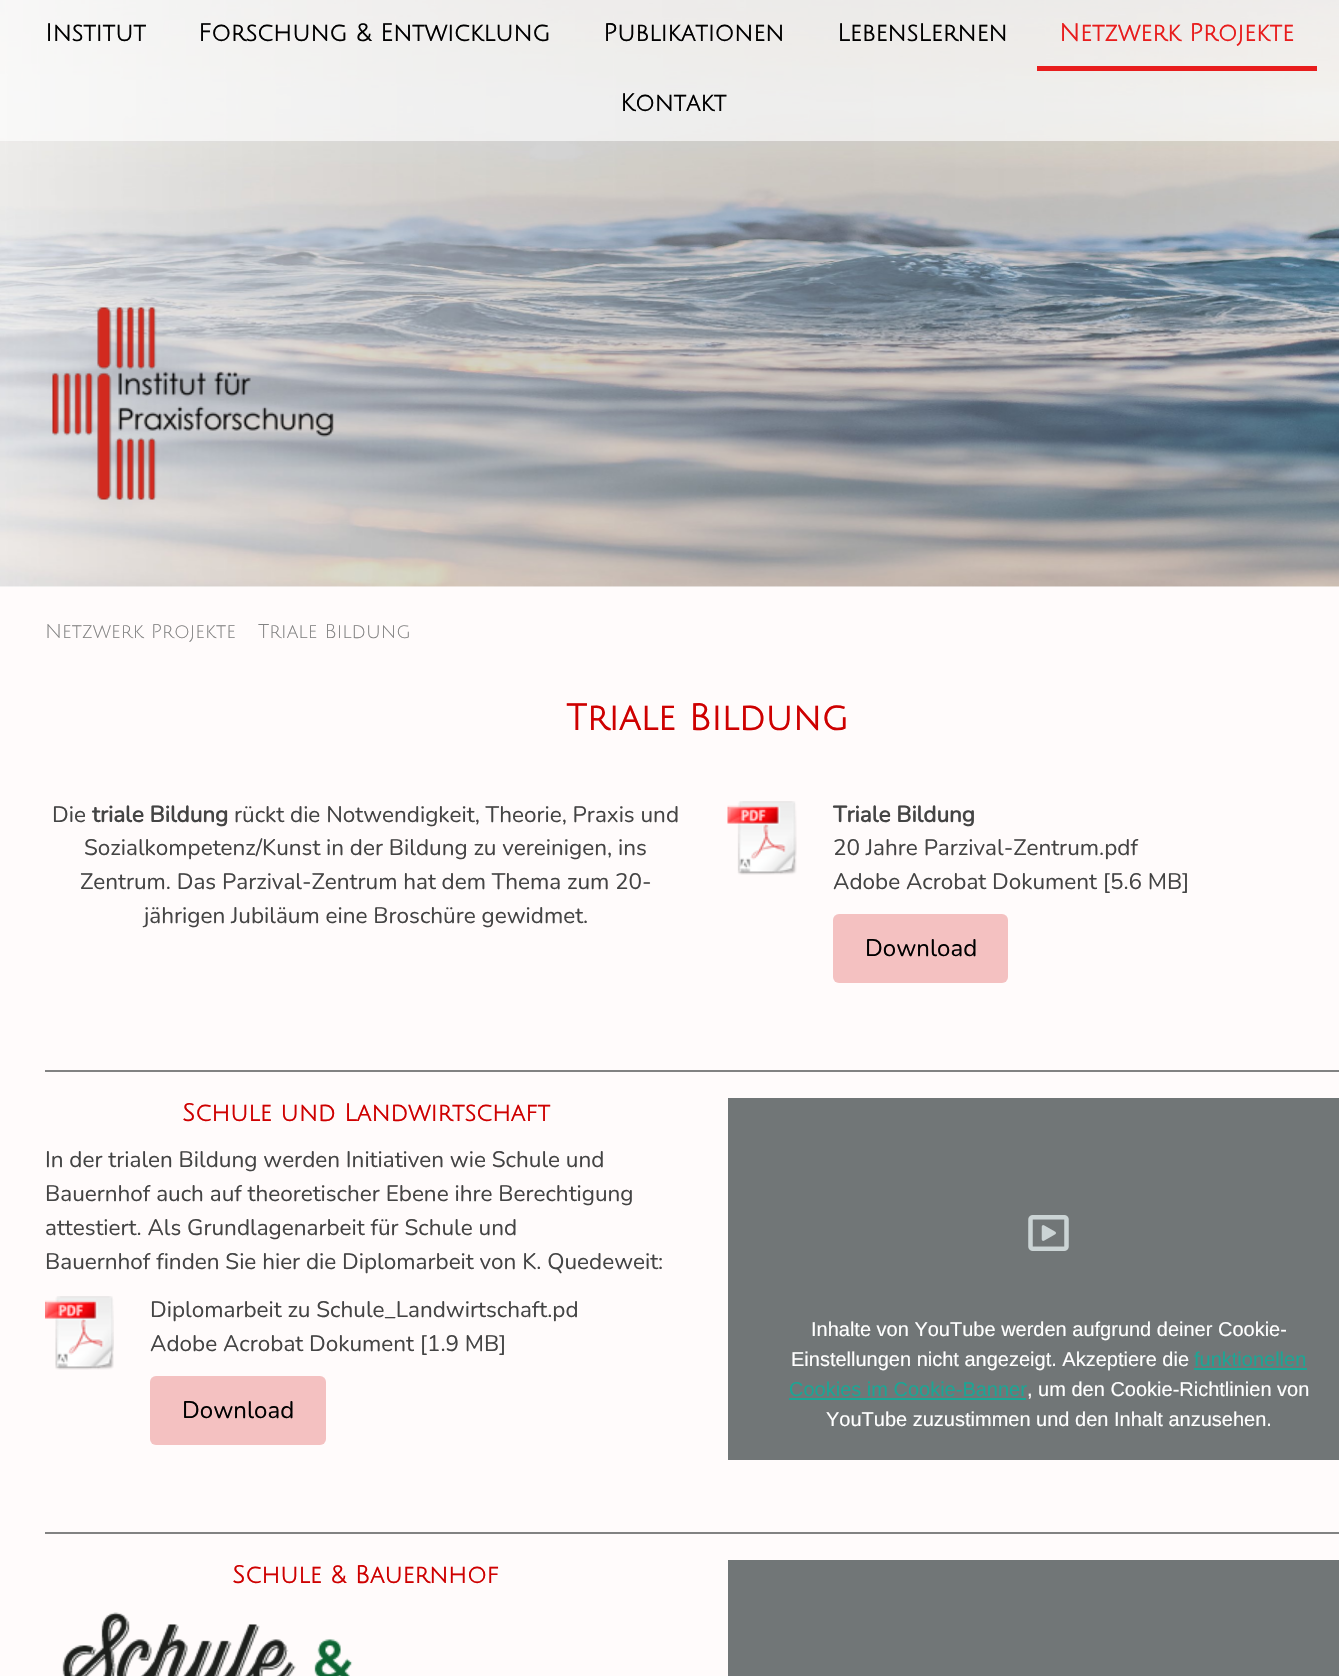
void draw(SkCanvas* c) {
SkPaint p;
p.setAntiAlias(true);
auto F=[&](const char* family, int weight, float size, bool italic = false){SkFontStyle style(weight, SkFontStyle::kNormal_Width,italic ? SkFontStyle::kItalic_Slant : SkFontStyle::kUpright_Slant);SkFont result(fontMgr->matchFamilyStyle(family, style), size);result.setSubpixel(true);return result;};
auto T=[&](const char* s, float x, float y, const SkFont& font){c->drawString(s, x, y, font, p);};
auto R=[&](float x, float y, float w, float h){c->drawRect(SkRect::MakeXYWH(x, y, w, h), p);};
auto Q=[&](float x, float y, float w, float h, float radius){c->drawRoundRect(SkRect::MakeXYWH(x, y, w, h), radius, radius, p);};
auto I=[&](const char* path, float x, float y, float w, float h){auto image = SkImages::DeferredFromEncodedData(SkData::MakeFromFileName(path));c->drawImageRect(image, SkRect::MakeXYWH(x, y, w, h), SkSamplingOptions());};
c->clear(0xffffffff);
I("1.png",0,0,1339,587);
I("2.png",52,307,282,193);
p.setColor(0xa1ffffff);
R(0,0,1339,141);
auto f1 = F("Julius Sans One",700,24);
p.setColor(0xff000000);
T("Institut",45,41,f1);
T("Forschung & Entwicklung",198,41,f1);
T("Publikationen",603,41,f1);
T("LebensLernen",837,41,f1);
p.setColor(0xffe81d1d);
R(1037,66,280,5);
T("Netzwerk Projekte",1059,41,f1);
p.setColor(0xff000000);
T("Kontakt",620,111,f1);
p.setColor(0xfffffbfb);
R(0,587,1339,1089);
auto f2 = F("Julius Sans One",400,19.5);
p.setColor(0xff828282);
T("Netzwerk Projekte",45,638,f2);
T("Triale Bildung",258,638,f2);
auto f3 = F("Julius Sans One",700,36);
p.setColor(0xffce0000);
T("Triale Bildung",566,730,f3);
auto f4 = F("Nunito",200,22.5);
p.setColor(0xff444444);
T("Die",52,822,f4);
auto f5 = F("Nunito",700,22.5);
T("triale Bildung",92,822,f5);
T("rückt die Notwendigkeit, Theorie, Praxis und",234,822,f4);
T("Sozialkompetenz/Kunst in der Bildung zu vereinigen, ins",84,855,f4);
T("Zentrum. Das Parzival-Zentrum hat dem Thema zum 20-",80,889,f4);
T("jährigen Jubiläum eine Broschüre gewidmet.",144,923,f4);
I("3.png",727,801,70,74);
T("Triale Bildung",833,822,f5);
T("20 Jahre Parzival-Zentrum.pdf",833,855,f4);
T("Adobe Acrobat Dokument [5.6 MB]",833,889,f4);
p.setColor(0xfff4c1c1);
Q(833,914,175,69,6);
auto f6 = F("Nunito",200,24);
p.setColor(0xff000000);
T("Download",865,956,f6);
p.setColor(0xff828282);
R(45,1070,1294,2);
p.setColor(0xffce0000);
T("Schule und Landwirtschaft",182,1121,f1);
p.setColor(0xff444444);
T("In der trialen Bildung werden Initiativen wie Schule und",45,1167,f4);
T("Bauernhof auch auf theoretischer Ebene ihre Berechtigung",45,1201,f4);
T("attestiert. Als Grundlagenarbeit für Schule und",45,1235,f4);
T("Bauernhof finden Sie hier die Diplomarbeit von K. Quedeweit:",45,1269,f4);
I("4.png",45,1296,69,74);
T("Diplomarbeit zu Schule_Landwirtschaft.pd",150,1317,f4);
T("Adobe Acrobat Dokument [1.9 MB]",150,1351,f4);
p.setColor(0xfff4c1c1);
Q(150,1376,176,69,6);
p.setColor(0xff000000);
T("Download",182,1418,f6);
p.setColor(0xff717677);
R(728,1098,611,362);
I("5.png",1028,1215,41,36);
auto f7 = F("Liberation Sans",400,20);
p.setColor(0xffffffff);
T("Inhalte von YouTube werden aufgrund deiner Cookie-",811,1336,f7);
T("Einstellungen nicht angezeigt. Akzeptiere die",791,1366,f7);
p.setColor(0xff1ca594);
T("funktionellen",1194,1366,f7);
R(1194,1368,113,2);
T("Cookies im Cookie-Banner",789,1396,f7);
R(789,1398,237,2);
p.setColor(0xffffffff);
T(", um den Cookie-Richtlinien von",1027,1396,f7);
T("YouTube zuzustimmen und den Inhalt anzusehen.",826,1426,f7);
p.setColor(0xff828282);
R(45,1532,1294,2);
p.setColor(0xffce0000);
T("Schule & Bauernhof",232,1583,f1);
I("6.png",62,1612,291,64);
p.setColor(0xff717677);
R(728,1560,611,116);
}
